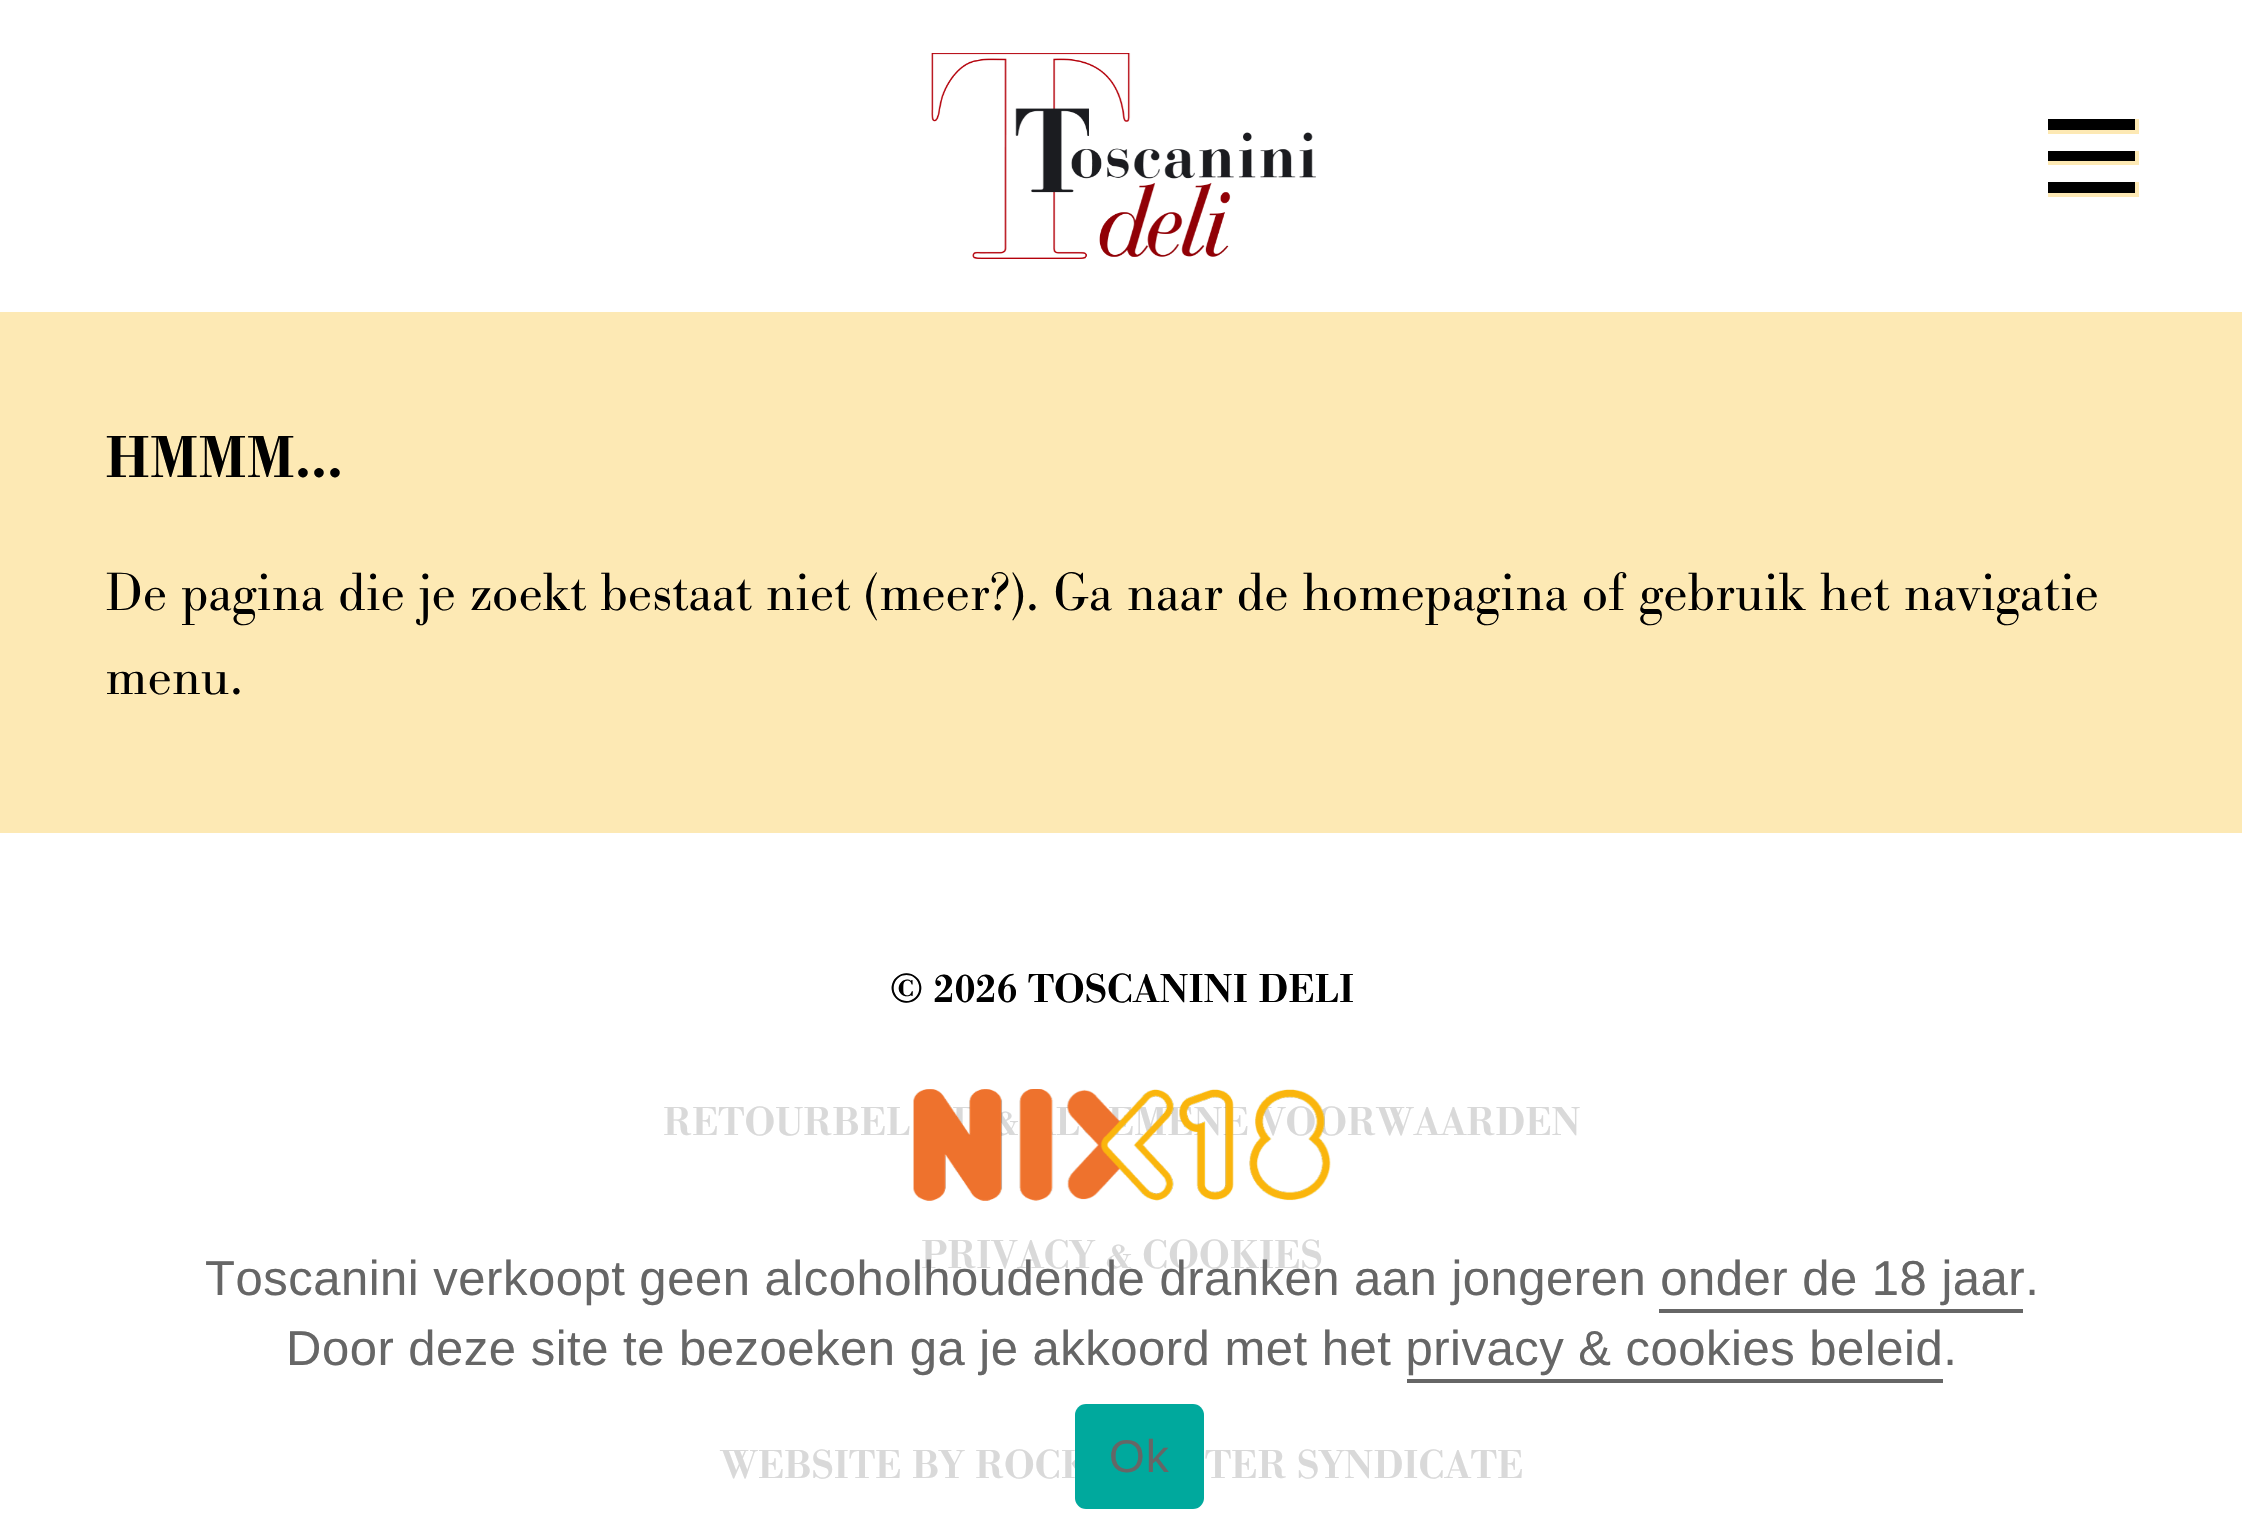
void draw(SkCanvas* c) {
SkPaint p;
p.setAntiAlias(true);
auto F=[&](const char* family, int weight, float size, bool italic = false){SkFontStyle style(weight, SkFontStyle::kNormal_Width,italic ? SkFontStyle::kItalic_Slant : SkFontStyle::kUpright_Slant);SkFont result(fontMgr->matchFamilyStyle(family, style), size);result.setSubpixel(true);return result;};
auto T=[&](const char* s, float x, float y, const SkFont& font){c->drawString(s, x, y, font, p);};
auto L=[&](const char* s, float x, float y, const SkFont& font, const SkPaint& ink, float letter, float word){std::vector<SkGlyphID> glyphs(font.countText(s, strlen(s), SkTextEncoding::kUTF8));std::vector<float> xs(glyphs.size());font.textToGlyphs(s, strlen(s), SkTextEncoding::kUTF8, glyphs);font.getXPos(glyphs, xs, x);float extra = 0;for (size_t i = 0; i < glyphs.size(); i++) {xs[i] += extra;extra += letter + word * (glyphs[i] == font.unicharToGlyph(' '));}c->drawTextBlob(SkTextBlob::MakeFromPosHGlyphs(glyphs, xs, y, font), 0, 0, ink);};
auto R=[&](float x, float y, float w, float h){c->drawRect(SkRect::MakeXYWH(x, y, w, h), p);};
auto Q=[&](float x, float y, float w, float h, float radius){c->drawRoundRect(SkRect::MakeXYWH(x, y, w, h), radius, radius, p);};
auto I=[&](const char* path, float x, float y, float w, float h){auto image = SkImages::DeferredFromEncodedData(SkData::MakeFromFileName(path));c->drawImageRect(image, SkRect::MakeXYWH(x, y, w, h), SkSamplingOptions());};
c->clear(0xfffde9b4);
p.setColor(0xffffffff);
R(0,0,2242,312);
I("1.png",931,53,385,206);
p.setColor(0xff000000);
R(2048,119,87,11);
p.setColor(0xfffde9b4);
R(2135,119,4,14);
R(2048,130,91,4);
p.setColor(0xff000000);
R(2048,151,87,10);
p.setColor(0xfffde9b4);
R(2135,151,4,14);
R(2048,161,91,4);
p.setColor(0xff000000);
R(2048,182,87,11);
p.setColor(0xfffde9b4);
R(2135,182,4,14);
R(2048,193,91,4);
auto f1 = F("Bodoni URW",500,61.5);
p.setColor(0xff000000);
T("HMMM...",105,477,f1);
auto f2 = F("Bodoni URW",300,56);
T("De pagina die je zoekt bestaat niet (meer?). Ga naar de homepagina of gebruik het navigatie",105,610,f2);
T("menu.",105,694,f2);
p.setColor(0xffffffff);
R(0,833,2242,702);
auto f3 = F("Bodoni URW",500,42);
p.setColor(0xff000000);
T("© 2026 TOSCANINI DELI",890,1002,f3);
p.setColor(0xffd9d9d9);
T("RETOURBEL",663,1135,f3);
T("D & ALGEMENE VOORWAARDEN",952,1135,f3);
T("PRIVACY & COOKIES",921,1268,f3);
T("WEBSITE BY ROCK",720,1478,f3);
T("TER SYNDICATE",1205,1478,f3);
I("2.png",913,1089,418,112);
auto f4 = F("Liberation Sans",400,49);
p.setColor(0xff666666);
L("Toscanini verkoopt geen alcoholhoudende dranken aan jongeren onder de 18 jaar.",205,1295,f4,p,.5,0);
R(1659,1309,364,4);
L("Door deze site te bezoeken ga je akkoord met het privacy & cookies beleid.",286,1365,f4,p,.5,0);
R(1407,1379,536,4);
p.setColor(0xff00a99d);
Q(1075,1404,129,105,11);
auto f5 = F("Liberation Sans",400,46);
p.setColor(0xff666666);
L("Ok",1109,1472,f5,p,1,0);
}
